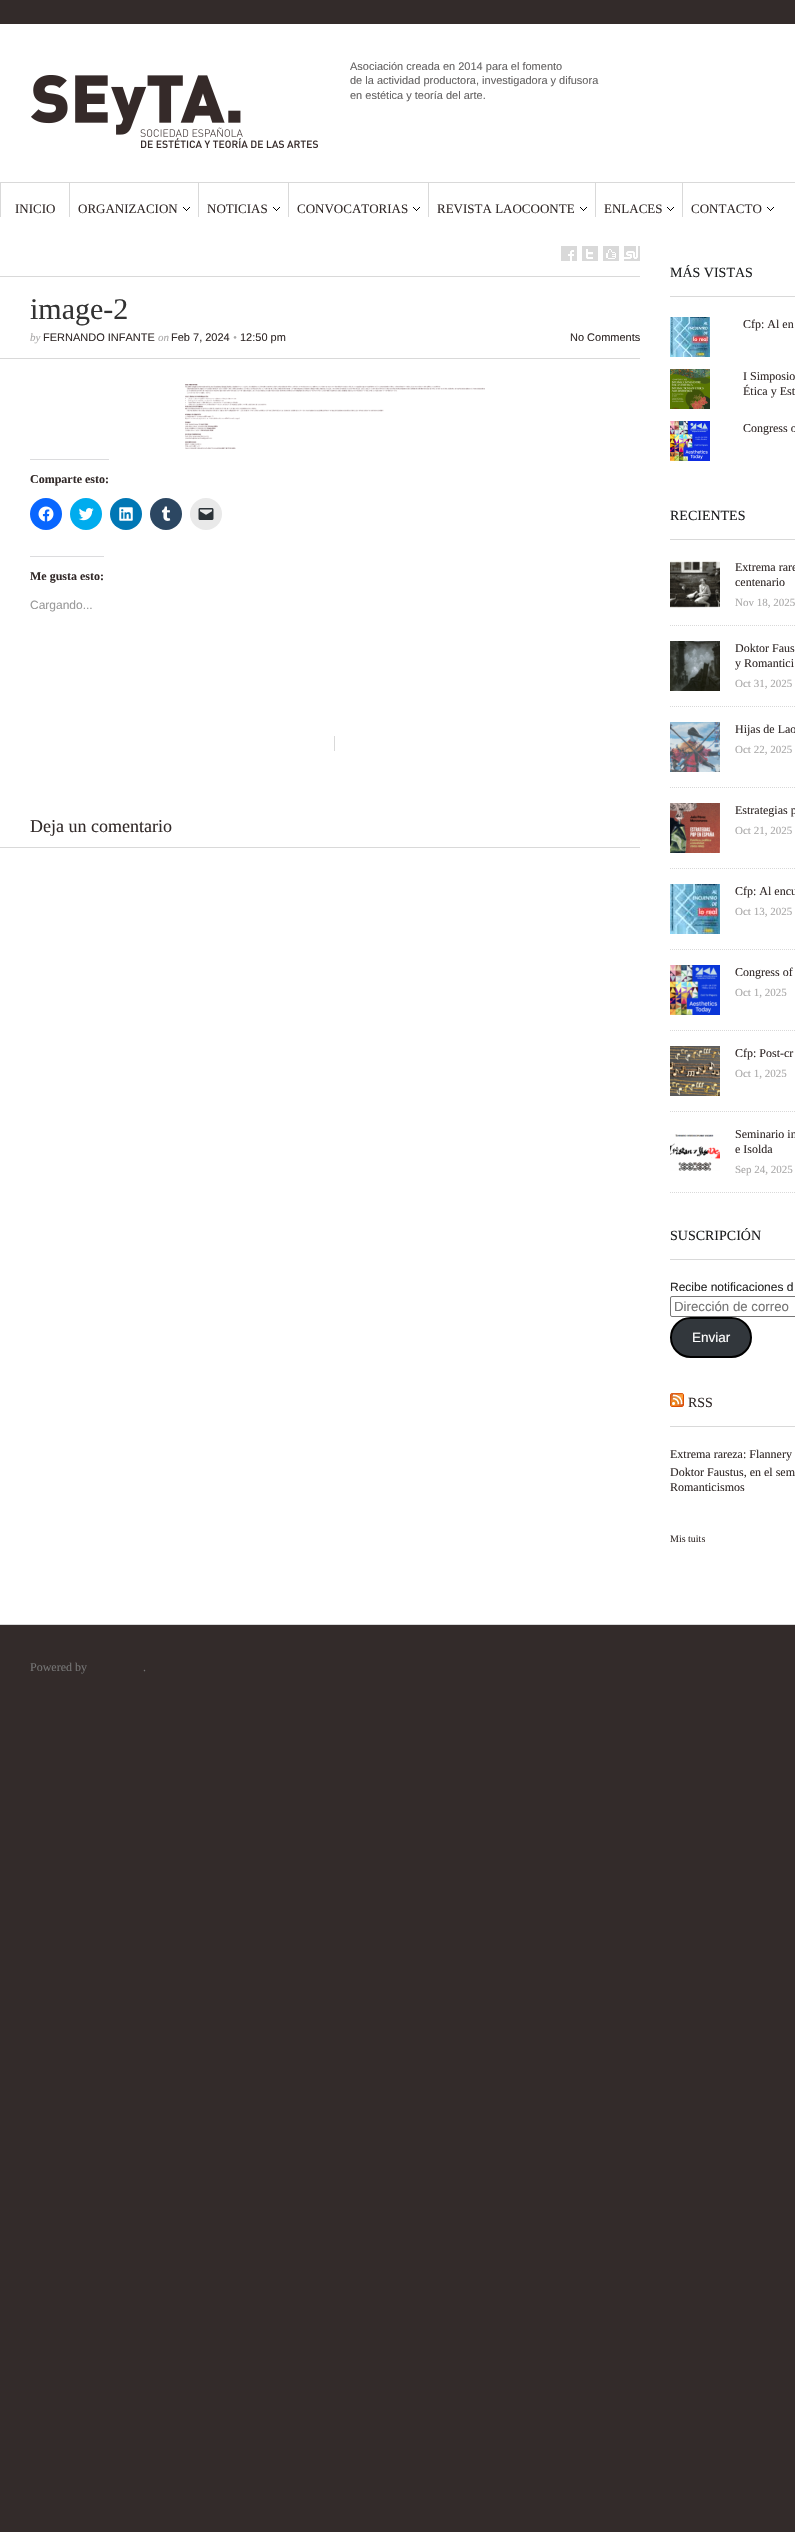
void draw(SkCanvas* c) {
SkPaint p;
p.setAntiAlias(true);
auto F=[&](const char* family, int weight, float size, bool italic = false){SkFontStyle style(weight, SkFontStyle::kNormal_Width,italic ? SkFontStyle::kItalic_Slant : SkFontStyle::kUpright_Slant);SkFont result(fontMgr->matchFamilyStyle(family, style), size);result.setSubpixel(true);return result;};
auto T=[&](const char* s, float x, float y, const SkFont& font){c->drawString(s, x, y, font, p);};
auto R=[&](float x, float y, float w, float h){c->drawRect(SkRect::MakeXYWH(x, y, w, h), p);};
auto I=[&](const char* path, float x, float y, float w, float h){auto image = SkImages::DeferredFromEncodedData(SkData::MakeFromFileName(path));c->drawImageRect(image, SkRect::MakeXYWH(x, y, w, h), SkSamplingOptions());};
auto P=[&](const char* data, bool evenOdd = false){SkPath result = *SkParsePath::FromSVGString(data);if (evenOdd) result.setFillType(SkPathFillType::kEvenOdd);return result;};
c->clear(0xff332b2a);
p.setColor(0xffffffff);
R(0,24,795,1600);
I("1.png",31,75,287,73);
auto f1 = F("Liberation Sans",400,11);
p.setColor(0xff656363);
T("Asociación creada en 2014 para el fomento",350,70,f1);
T("de la actividad productora, investigadora y difusora",350,84,f1);
T("en estética y teoría del arte.",350,99,f1);
p.setColor(0xffd9d9d9);
R(0,182,795,1);
R(0,183,1,34);
auto f2 = F("Liberation Serif",400,13);
p.setColor(0xff332b2a);
T("INICIO",15,213,f2);
p.setColor(0xffd9d9d9);
R(69,183,1,34);
I("2.png",183,207,7,4);
p.setColor(0xff332b2a);
T("ORGANIZACION",78,213,f2);
p.setColor(0xffd9d9d9);
R(198,183,1,34);
I("2.png",273,207,7,4);
p.setColor(0xff332b2a);
T("NOTICIAS",207,213,f2);
p.setColor(0xffd9d9d9);
R(288,183,1,34);
I("2.png",413,207,7,4);
p.setColor(0xff332b2a);
T("CONVOCATORIAS",297,213,f2);
p.setColor(0xffd9d9d9);
R(428,183,1,34);
I("2.png",580,207,7,4);
p.setColor(0xff332b2a);
T("REVISTA LAOCOONTE",437,213,f2);
p.setColor(0xffd9d9d9);
R(595,183,1,34);
I("2.png",667,207,7,4);
p.setColor(0xff332b2a);
T("ENLACES",604,213,f2);
p.setColor(0xffd9d9d9);
R(682,183,1,34);
I("2.png",767,207,7,4);
p.setColor(0xff332b2a);
T("CONTACTO",691,213,f2);
p.setColor(0xffd9d9d9);
R(0,276,640,1);
I("3.png",561,246,16,15);
I("4.png",582,246,16,15);
I("5.png",603,246,16,15);
I("6.png",624,246,16,15);
R(0,358,640,1);
auto f3 = F("Liberation Serif",400,30);
p.setColor(0xff333333);
T("image-2",30,319,f3);
auto f4 = F("Liberation Serif",400,11,true);
p.setColor(0xffaaa9a9);
T("by",30,341,f4);
p.setColor(0xff332b2a);
T("FERNANDO INFANTE",43,341,f1);
p.setColor(0xffaaa9a9);
T("on",158,341,f4);
p.setColor(0xff332b2a);
T("Feb 7, 2024",171,341,f1);
p.setColor(0xffaaa9a9);
T("•",233,341,f4);
p.setColor(0xff332b2a);
T("12:50 pm",240,341,f1);
T("No Comments",570,341,f1);
I("7.png",185,384,300,65);
p.setColor(0xffdcdcde);
R(30,459,79,1);
auto f5 = F("Liberation Serif",700,12);
p.setColor(0xff332b2a);
T("Comparte esto:",30,483,f5);
p.setColor(0xff0866ff);
c->drawCircle(46,514,16,p);
I("8.png",38,506,16,16);
p.setColor(0xff00acee);
c->drawCircle(86,514,16,p);
I("9.png",78,508,16,13);
p.setColor(0xff0077b5);
c->drawCircle(126,514,16,p);
I("10.png",119,507,14,14);
p.setColor(0xff2c4762);
c->drawCircle(166,514,16,p);
I("11.png",161,506,10,15);
p.setColor(0xffe9e9e9);
c->drawCircle(206,514,16,p);
I("12.png",198,508,16,12);
p.setColor(0xffdcdcde);
R(30,556,74,1);
p.setColor(0xff332b2a);
T("Me gusta esto:",30,580,f5);
auto f6 = F("Liberation Sans",400,12);
p.setColor(0xff999999);
T("Cargando...",30,609,f6);
p.setColor(0xffd9d9d9);
R(334,736,1,15);
R(0,847,640,1);
auto f7 = F("Liberation Serif",400,18);
p.setColor(0xff332b2a);
T("Deja un comentario",30,832,f7);
p.setColor(0xffd9d9d9);
R(670,296,125,1);
auto f8 = F("Liberation Serif",400,14);
p.setColor(0xff1f2122);
T("MÁS VISTAS",670,277,f8);
I("13.png",670,317,40,40);
auto f9 = F("Liberation Serif",400,12);
p.setColor(0xff332b2a);
T("Cfp: Al en",743,328,f9);
I("14.png",670,369,40,40);
T("I Simposio",743,380,f9);
T("Ética y Est",743,395,f9);
I("15.png",670,421,40,40);
T("Congress o",743,432,f9);
p.setColor(0xffd9d9d9);
R(670,539,125,1);
p.setColor(0xff1f2122);
T("RECIENTES",670,520,f8);
p.setStroke(true);
p.setStrokeWidth(1);
p.setColor(0xffd9d9d9);
p.setPathEffect(SkDashPathEffect::Make({{1,1}}, 0));
c->drawPath(P("M670 625.5h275"),p);
p.setPathEffect(nullptr);
I("16.png",670,560,50,50);
p.setStroke(false);
p.setColor(0xff332b2a);
T("Extrema rare",735,571,f9);
T("centenario",735,586,f9);
auto f10 = F("Liberation Serif",400,11);
p.setColor(0xffaaa9a9);
T("Nov 18, 2025",735,606,f10);
p.setStroke(true);
p.setColor(0xffd9d9d9);
p.setPathEffect(SkDashPathEffect::Make({{1,1}}, 0));
c->drawPath(P("M670 706.5h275"),p);
p.setPathEffect(nullptr);
I("17.png",670,641,50,50);
p.setStroke(false);
p.setColor(0xff332b2a);
T("Doktor Faus",735,652,f9);
T("y Romantici",735,667,f9);
p.setColor(0xffaaa9a9);
T("Oct 31, 2025",735,687,f10);
p.setStroke(true);
p.setColor(0xffd9d9d9);
p.setPathEffect(SkDashPathEffect::Make({{1,1}}, 0));
c->drawPath(P("M670 787.5h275"),p);
p.setPathEffect(nullptr);
I("18.png",670,722,50,50);
p.setStroke(false);
p.setColor(0xff332b2a);
T("Hijas de Lao",735,733,f9);
p.setColor(0xffaaa9a9);
T("Oct 22, 2025",735,753,f10);
p.setStroke(true);
p.setColor(0xffd9d9d9);
p.setPathEffect(SkDashPathEffect::Make({{1,1}}, 0));
c->drawPath(P("M670 868.5h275"),p);
p.setPathEffect(nullptr);
I("19.png",670,803,50,50);
p.setStroke(false);
p.setColor(0xff332b2a);
T("Estrategias p",735,814,f9);
p.setColor(0xffaaa9a9);
T("Oct 21, 2025",735,834,f10);
p.setStroke(true);
p.setColor(0xffd9d9d9);
p.setPathEffect(SkDashPathEffect::Make({{1,1}}, 0));
c->drawPath(P("M670 949.5h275"),p);
p.setPathEffect(nullptr);
I("20.png",670,884,50,50);
p.setStroke(false);
p.setColor(0xff332b2a);
T("Cfp: Al encu",735,895,f9);
p.setColor(0xffaaa9a9);
T("Oct 13, 2025",735,915,f10);
p.setStroke(true);
p.setColor(0xffd9d9d9);
p.setPathEffect(SkDashPathEffect::Make({{1,1}}, 0));
c->drawPath(P("M670 1030.5h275"),p);
p.setPathEffect(nullptr);
I("21.png",670,965,50,50);
p.setStroke(false);
p.setColor(0xff332b2a);
T("Congress of",735,976,f9);
p.setColor(0xffaaa9a9);
T("Oct 1, 2025",735,996,f10);
p.setStroke(true);
p.setColor(0xffd9d9d9);
p.setPathEffect(SkDashPathEffect::Make({{1,1}}, 0));
c->drawPath(P("M670 1111.5h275"),p);
p.setPathEffect(nullptr);
I("22.png",670,1046,50,50);
p.setStroke(false);
p.setColor(0xff332b2a);
T("Cfp: Post-cr",735,1057,f9);
p.setColor(0xffaaa9a9);
T("Oct 1, 2025",735,1077,f10);
p.setStroke(true);
p.setColor(0xffd9d9d9);
p.setPathEffect(SkDashPathEffect::Make({{1,1}}, 0));
c->drawPath(P("M670 1192.5h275"),p);
p.setPathEffect(nullptr);
I("23.png",670,1134,50,37);
p.setStroke(false);
p.setColor(0xff332b2a);
T("Seminario in",735,1138,f9);
T("e Isolda",735,1153,f9);
p.setColor(0xffaaa9a9);
T("Sep 24, 2025",735,1173,f10);
p.setColor(0xffd9d9d9);
R(670,1259,125,1);
p.setColor(0xff1f2122);
T("SUSCRIPCIÓN",670,1240,f8);
p.setColor(0xff262626);
T("Recibe notificaciones d",670,1291,f6);
p.setStroke(true);
p.setColor(0xff767676);
c->drawRoundRect(SkRect::MakeXYWH(670.5,1296.5,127,20),1.5,1.5,p);
auto f11 = F("Liberation Sans",400,13.25);
p.setStroke(false);
p.setColor(0xff757575);
T("Dirección de correo",674,1311,f11);
p.setColor(0xff32373c);
c->drawRoundRect(SkRect::MakeXYWH(671,1318,80,39),19.5,19.5,p);
p.setStroke(true);
p.setStrokeWidth(2);
p.setColor(0xff000000);
c->drawRoundRect(SkRect::MakeXYWH(671,1318,80,39),19.5,19.5,p);
auto f12 = F("Liberation Sans",400,13.5);
p.setStroke(false);
p.setColor(0xffffffff);
T("Enviar",692,1342,f12);
p.setColor(0xffd9d9d9);
R(670,1426,125,1);
I("24.png",670,1393,14,14);
p.setColor(0xff332b2a);
T("RSS",688,1407,f8);
T("Extrema rareza: Flannery",670,1458,f9);
T("Doktor Faustus, en el sem",670,1476,f9);
T("Romanticismos",670,1491,f9);
auto f13 = F("Liberation Serif",400,10);
T("Mis tuits",670,1542,f13);
p.setColor(0xffd9d9d9);
R(0,1624,795,1);
p.setColor(0xff757575);
T("Powered by",30,1671,f9);
T(".",143,1671,f9);
}
